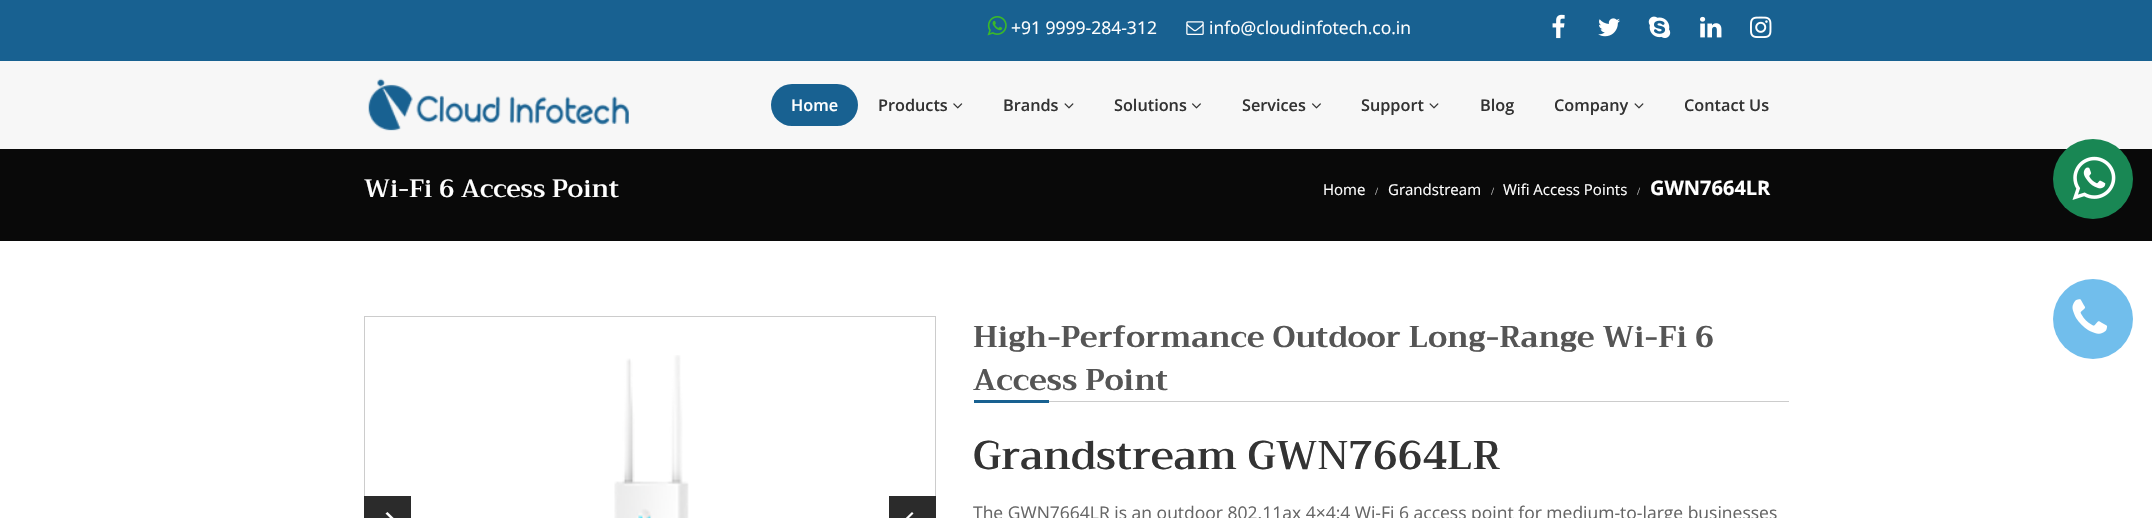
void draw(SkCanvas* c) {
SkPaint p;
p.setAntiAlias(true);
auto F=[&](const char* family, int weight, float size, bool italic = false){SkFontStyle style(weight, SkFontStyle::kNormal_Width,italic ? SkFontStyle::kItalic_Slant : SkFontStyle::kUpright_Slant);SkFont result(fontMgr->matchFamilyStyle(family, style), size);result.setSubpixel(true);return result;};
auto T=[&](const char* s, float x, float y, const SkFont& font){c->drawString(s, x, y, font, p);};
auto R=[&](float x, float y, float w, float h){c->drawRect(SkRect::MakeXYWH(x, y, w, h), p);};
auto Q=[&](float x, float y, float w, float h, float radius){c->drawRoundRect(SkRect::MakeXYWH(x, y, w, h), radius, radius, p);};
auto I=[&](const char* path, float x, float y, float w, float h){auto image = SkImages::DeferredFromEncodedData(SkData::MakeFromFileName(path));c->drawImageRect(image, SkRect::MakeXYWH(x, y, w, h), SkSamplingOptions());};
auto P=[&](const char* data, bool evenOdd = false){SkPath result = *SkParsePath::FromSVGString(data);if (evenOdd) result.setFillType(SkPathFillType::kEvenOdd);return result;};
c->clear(0xffffffff);
p.setColor(0xff186191);
R(0,0,2152,61);
I("1.png",987,16,20,20);
auto f1 = F("Open Sans",400,17.5);
p.setColor(0xffffffff);
T("+91 9999-284-312",1011,34,f1);
I("2.png",1186,21,18,14);
T("info@cloudinfotech.co.in",1209,34,f1);
I("3.png",1552,14,13,25);
I("4.png",1598,18,22,19);
I("5.png",1648,16,23,22);
I("6.png",1700,16,22,22);
I("7.png",1750,16,22,22);
p.setColor(0xfff7f7f7);
R(0,61,2152,88);
I("8.png",368,78,261,53);
p.setColor(0xff186191);
Q(771,84,87,42,21);
auto f2 = F("Open Sans",600,16.25);
p.setColor(0xffffffff);
T("Home",791,111,f2);
p.setColor(0xff333333);
T("Products",878,111,f2);
I("9.png",953,103,10,6);
T("Brands",1003,111,f2);
I("10.png",1064,103,10,6);
T("Solutions",1114,111,f2);
I("11.png",1192,103,9,6);
T("Services",1242,111,f2);
I("11.png",1312,103,9,6);
T("Support",1361,111,f2);
I("10.png",1429,103,10,6);
T("Blog",1480,111,f2);
T("Company",1554,111,f2);
I("10.png",1634,103,10,6);
T("Contact Us",1684,111,f2);
p.setColor(0xff090909);
R(0,149,2152,92);
auto f3 = F("Trirong",600,25);
p.setColor(0xffffffff);
T("Wi-Fi 6 Access Point",364,197,f3);
auto f4 = F("Open Sans",400,15);
T("Home",1323,195,f4);
auto f5 = F("Liberation Serif",400,11);
p.setColor(0xffcccccc);
T("/",1375,195,f5);
p.setColor(0xffffffff);
T("Grandstream",1388,195,f4);
p.setColor(0xffcccccc);
T("/",1491,195,f5);
p.setColor(0xffffffff);
T("Wifi Access Points",1503,195,f4);
p.setColor(0xffcccccc);
T("/",1637,195,f5);
auto f6 = F("Open Sans",700,20);
p.setColor(0xffffffff);
T("GWN7664LR",1650,195,f6);
p.setStroke(true);
p.setStrokeWidth(1);
p.setColor(0xffcccccc);
c->drawRect(SkRect::MakeXYWH(364.5,316.5,571,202),p);
I("12.png",614,355,75,163);
p.setStroke(false);
p.setColor(0xff2b2b2b);
R(364,496,47,22);
p.setColor(0xffffffff);
c->drawPath(P("M385.5 513.5l2-1.5l16 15.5l-2 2z"),p);
p.setColor(0xff2b2b2b);
R(889,496,47,22);
p.setColor(0xffffffff);
c->drawPath(P("M913.5 513.5l-16 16l-1.5-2l16-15.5z"),p);
p.setColor(0xffcccccc);
R(1049,401,740,1);
auto f7 = F("Trirong",700,30);
p.setColor(0xff555555);
T("High-Performance Outdoor Long-Range Wi-Fi 6",973,347,f7);
T("Access Point",973,390,f7);
p.setColor(0xff186191);
R(974,400,75,3);
auto f8 = F("Trirong",600,40);
p.setColor(0xff333333);
T("Grandstream GWN7664LR",973,469,f8);
p.setColor(0xff666666);
T("The GWN7664LR is an outdoor 802.11ax 4×4:4 Wi-Fi 6 access point for medium-to-large businesses",973,519,f1);
p.setColor(0xff198754);
c->drawCircle(2093,179,40,p);
I("13.png",2072,156,44,44);
p.setColor(0xff71beec);
c->drawCircle(2093,319,40,p);
I("14.png",2072,299,36,35);
}
